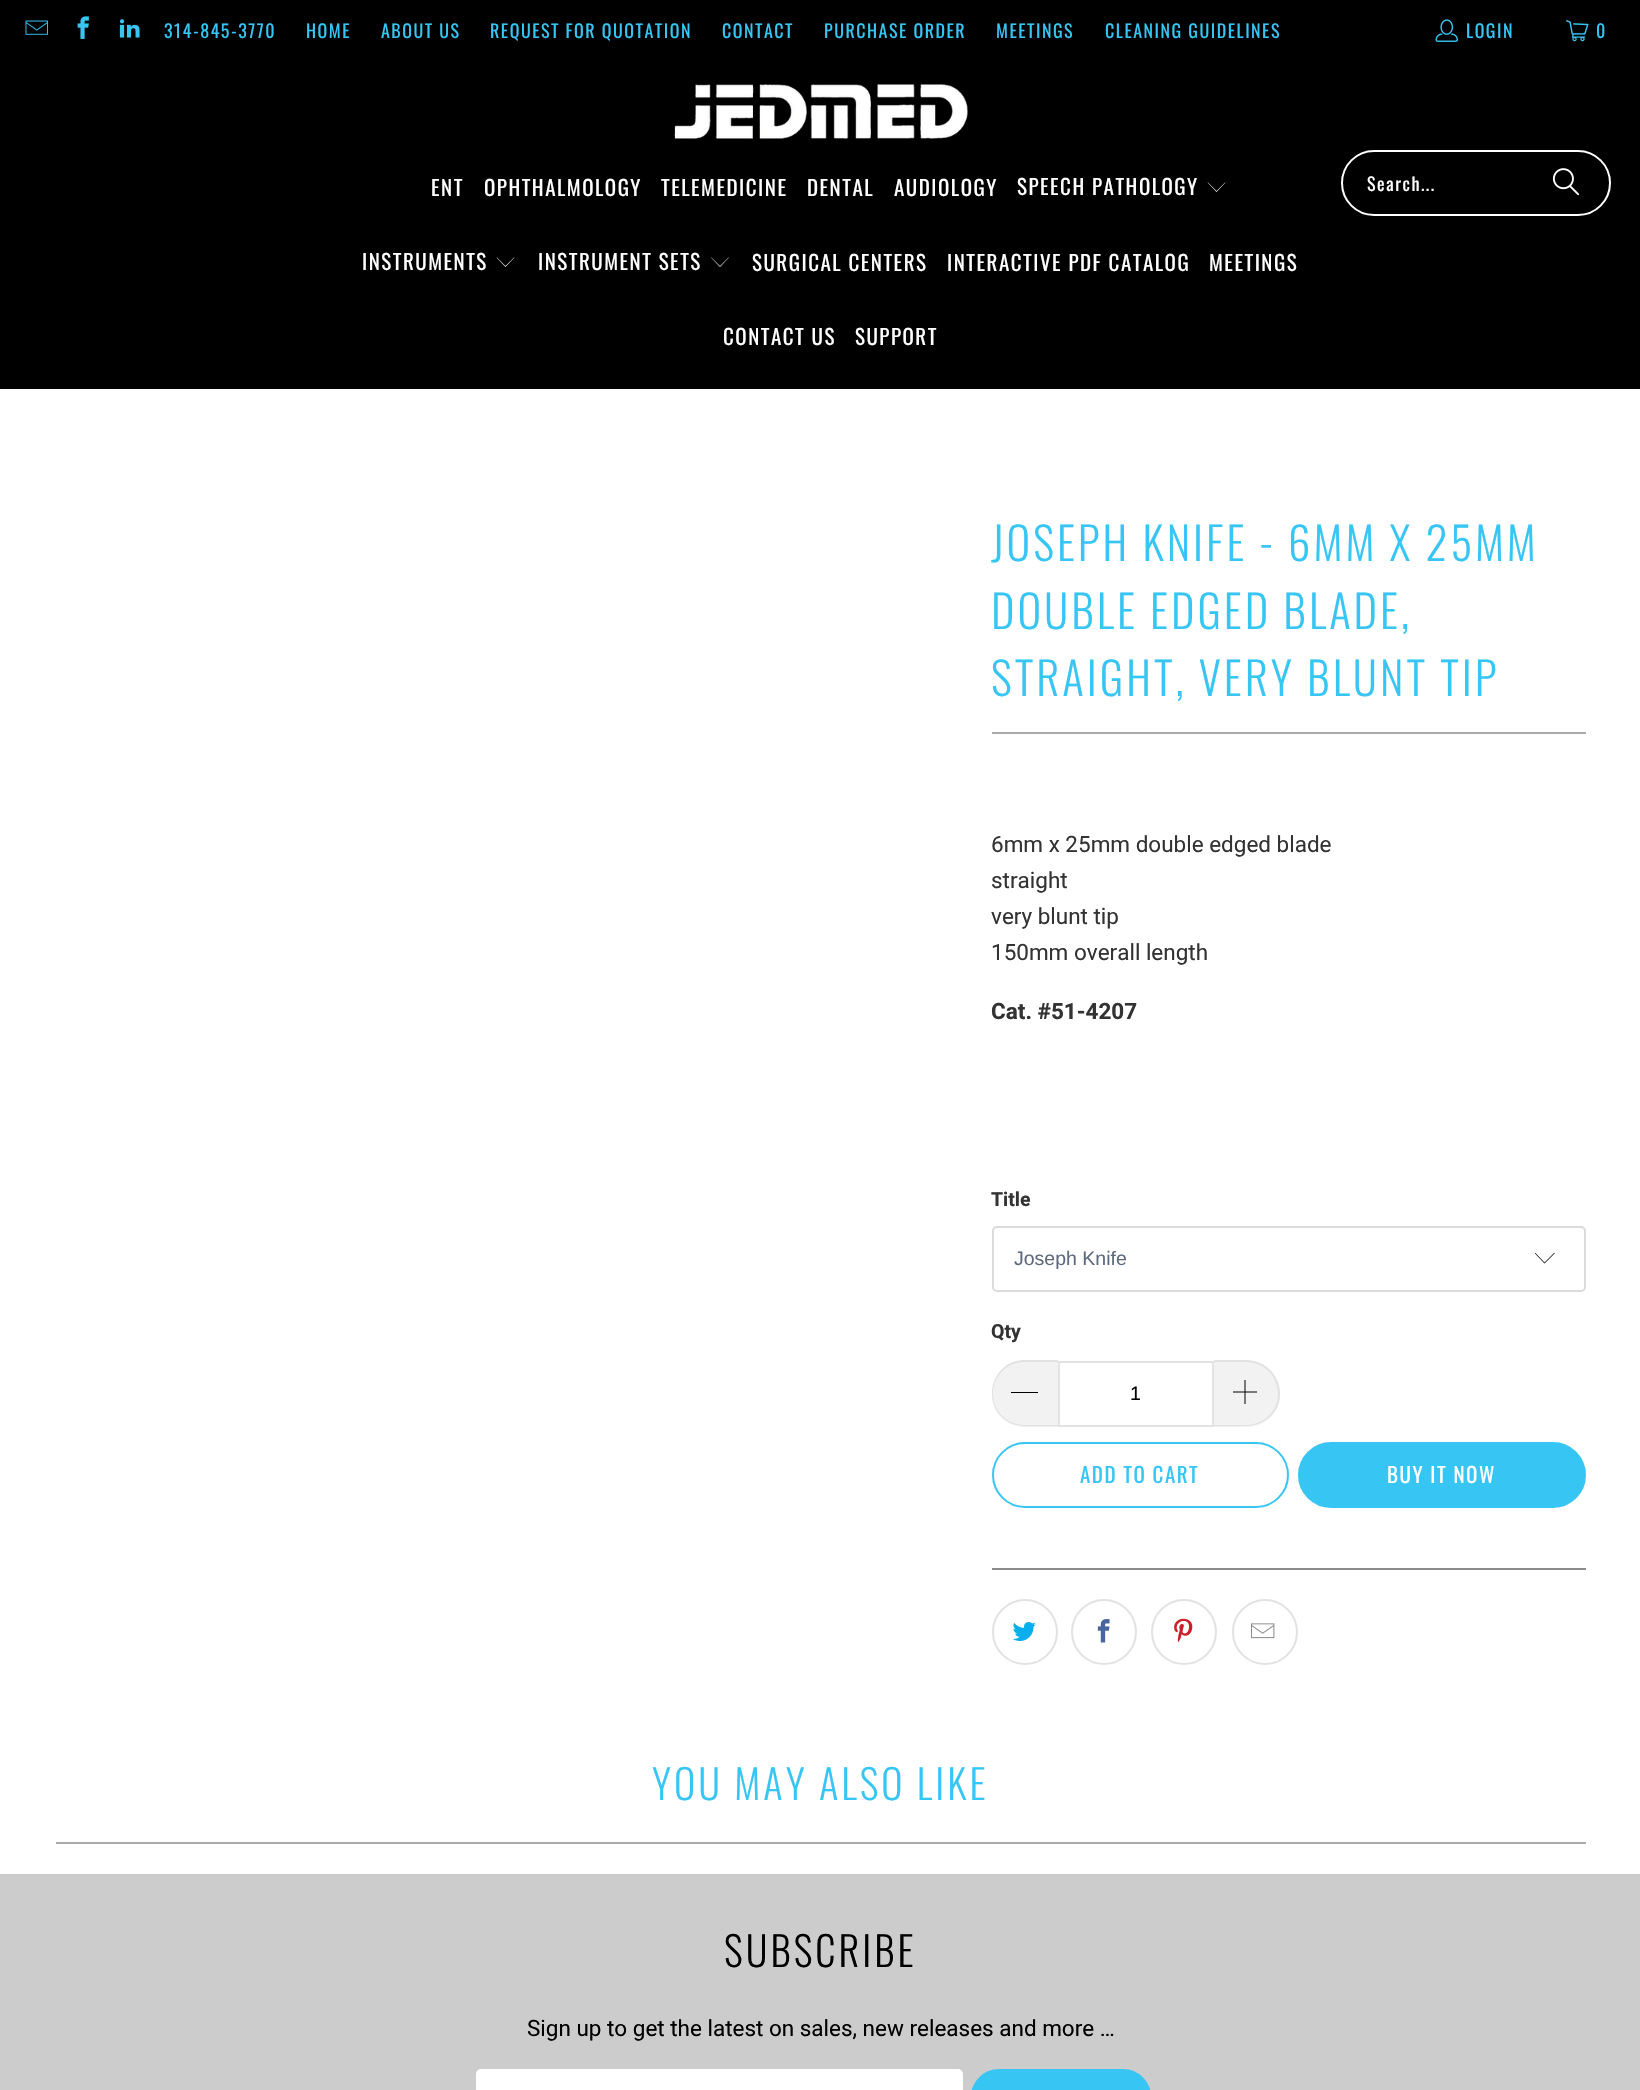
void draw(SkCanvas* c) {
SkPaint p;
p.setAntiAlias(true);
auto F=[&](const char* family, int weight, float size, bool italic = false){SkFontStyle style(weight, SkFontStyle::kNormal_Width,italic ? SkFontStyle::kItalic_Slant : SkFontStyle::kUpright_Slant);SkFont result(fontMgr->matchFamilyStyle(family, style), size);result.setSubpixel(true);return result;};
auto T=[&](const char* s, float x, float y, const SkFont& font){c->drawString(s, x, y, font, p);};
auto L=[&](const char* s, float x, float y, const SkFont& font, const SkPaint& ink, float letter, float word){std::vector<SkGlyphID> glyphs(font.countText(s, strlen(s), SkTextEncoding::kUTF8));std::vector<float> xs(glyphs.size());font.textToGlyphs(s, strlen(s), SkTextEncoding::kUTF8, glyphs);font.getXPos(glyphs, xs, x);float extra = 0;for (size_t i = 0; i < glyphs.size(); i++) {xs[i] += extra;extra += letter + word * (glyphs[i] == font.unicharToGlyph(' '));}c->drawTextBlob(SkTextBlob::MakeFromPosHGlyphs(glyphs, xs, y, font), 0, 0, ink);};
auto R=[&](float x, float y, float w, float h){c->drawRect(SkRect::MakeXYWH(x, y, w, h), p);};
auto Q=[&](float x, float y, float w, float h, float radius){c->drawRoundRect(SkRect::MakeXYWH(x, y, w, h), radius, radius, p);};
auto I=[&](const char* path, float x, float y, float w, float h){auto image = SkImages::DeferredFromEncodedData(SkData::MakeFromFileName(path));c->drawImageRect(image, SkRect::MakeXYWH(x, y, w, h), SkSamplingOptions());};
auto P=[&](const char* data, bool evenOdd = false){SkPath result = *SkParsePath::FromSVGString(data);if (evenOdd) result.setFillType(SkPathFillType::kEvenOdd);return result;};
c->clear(0xffffffff);
p.setColor(0xff000000);
R(0,0,1640,389);
I("1.png",25,20,23,15);
I("2.png",77,16,12,23);
I("3.png",119,19,21,19);
auto f1 = F("Oswald",400,18);
p.setColor(0xff37c6f4);
L("314-845-3770",164,38,f1,p,1.5,0);
L("HOME",306,38,f1,p,1.5,0);
L("ABOUT US",381,38,f1,p,1.5,0);
L("REQUEST FOR QUOTATION",490,38,f1,p,1.5,0);
L("CONTACT",722,38,f1,p,1.5,0);
L("PURCHASE ORDER",824,38,f1,p,1.5,0);
L("MEETINGS",996,38,f1,p,1.5,0);
L("CLEANING GUIDELINES",1105,38,f1,p,1.5,0);
I("4.png",1435,19,23,23);
L("LOGIN",1466,38,f1,p,1.5,0);
I("5.png",1566,20,23,22);
L("0",1596,38,f1,p,1.5,0);
I("6.png",674,84,294,55);
auto f2 = F("Oswald",400,21);
p.setColor(0xffffffff);
L("ENT",431,196,f2,p,1.5,0);
L("OPHTHALMOLOGY",484,196,f2,p,1.5,0);
L("TELEMEDICINE",661,196,f2,p,1.5,0);
L("DENTAL",807,196,f2,p,1.5,0);
L("AUDIOLOGY",894,196,f2,p,1.5,0);
L("SPEECH PATHOLOGY",1017,195,f2,p,1.5,0);
c->drawPath(P("M1216.5 192l-9-9.5h.5l8.5 8.5l8.5-8.5h.5z"),p);
L("INSTRUMENTS",362,270,f2,p,1.5,0);
c->drawPath(P("M505.5 267l-9-9.5h.5l8.5 8.5l8.5-8.5h.5z"),p);
L("INSTRUMENT SETS",538,270,f2,p,1.5,0);
c->drawPath(P("M720 267l-9-9.5h.5l8.5 8.5l8.5-8.5h.5z"),p);
L("SURGICAL CENTERS",752,271,f2,p,1.5,0);
L("INTERACTIVE PDF CATALOG",947,271,f2,p,1.5,0);
L("MEETINGS",1209,271,f2,p,1.5,0);
L("CONTACT US",723,345,f2,p,1.5,0);
L("SUPPORT",855,345,f2,p,1.5,0);
p.setStroke(true);
p.setStrokeWidth(2);
c->drawRoundRect(SkRect::MakeXYWH(1342,151,268,64),32,32,p);
p.setStroke(false);
L("Search...",1367,191,f1,p,1.5,0);
I("7.png",1552,168,28,28);
auto f3 = F("Oswald",300,45);
p.setColor(0xff37c6f4);
L("JOSEPH KNIFE - 6MM X 25MM",991,561,f3,p,3,0);
L("DOUBLE EDGED BLADE,",991,629,f3,p,3,0);
L("STRAIGHT, VERY BLUNT TIP",991,696,f3,p,3,0);
p.setColor(0xffaaaaaa);
R(992,732,594,2);
auto f4 = F("Roboto",400,22.5);
p.setColor(0xff333333);
T("6mm x 25mm double edged blade",991,852,f4);
T("straight",991,888,f4);
T("very blunt tip",991,924,f4);
T("150mm overall length",991,960,f4);
auto f5 = F("Roboto",700,22.5);
T("Cat. #51-4207",991,1019,f5);
auto f6 = F("Roboto",700,19.5);
T("Title",991,1206,f6);
c->save();
c->clipRect(SkRect::MakeXYWH(1535,1253,21,12));
p.setColor(0xff000000);
c->drawPath(P("M1544.5 1263.5l-10-10.5l.5-.5l9.5 10l10-10l.5 .5z"),p);
c->restore();
p.setStroke(true);
p.setColor(0xffd9dbdc);
c->drawRoundRect(SkRect::MakeXYWH(993,1227,592,64),4,4,p);
auto f7 = F("Liberation Sans",400,19.5);
p.setStroke(false);
p.setColor(0xff5f6a7d);
T("Joseph Knife",1014,1265,f7);
p.setColor(0xff333333);
T("Qty",991,1338,f6);
p.setColor(0xfff2f2f2);
c->drawPath(P("M1025 1361h33v66h-33c-18 0-33-15-33-33c0-18 15-33 33-33z"),p);
p.setColor(0xffe2e2e2);
c->drawPath(P("M1024 1360h34v66h-34c-18 0-32-14-32-32c0-19 14-34 32-34zm0 2h34v63h-34c-17 0-31-14-31-31c0-18 14-32 31-32z",true),p);
p.setColor(0xff000000);
R(1011,1392,27,1);
p.setStroke(true);
p.setColor(0xffe2e2e2);
c->drawRect(SkRect::MakeXYWH(1059,1362,154,64),p);
p.setStroke(false);
p.setColor(0xff000000);
T("1",1130,1400,f7);
p.setColor(0xfff2f2f2);
c->drawPath(P("M1214 1361h33c18 0 33 15 33 33c0 18-15 33-33 33h-33z"),p);
p.setColor(0xffe2e2e2);
c->drawPath(P("M1214 1360h32c19 0 34 15 34 34c0 18-15 32-34 32h-32zm0 2h32c18 0 32 14 32 32c0 17-14 31-32 31h-32z",true),p);
I("8.png",1233,1380,24,24);
p.setStroke(true);
p.setColor(0xff37c6f4);
c->drawRoundRect(SkRect::MakeXYWH(993,1443,295,64),32,32,p);
p.setStroke(false);
L("ADD TO CART",1080,1483,f2,p,1.5,0);
c->drawRoundRect(SkRect::MakeXYWH(1299,1443,286,64),32,32,p);
p.setStroke(true);
c->drawRoundRect(SkRect::MakeXYWH(1299,1443,286,64),32,32,p);
p.setStroke(false);
p.setColor(0xffffffff);
L("BUY IT NOW",1387,1483,f2,p,1.5,0);
p.setColor(0xff8c8b8b);
R(992,1568,594,2);
p.setStroke(true);
p.setColor(0xffe2e2e2);
c->drawCircle(1025,1632,32,p);
I("9.png",1012,1622,24,19);
c->drawCircle(1104,1632,32,p);
I("10.png",1097,1619,13,24);
c->drawCircle(1184,1632,32,p);
I("11.png",1174,1618,19,24);
c->drawCircle(1265,1632,32,p);
I("12.png",1251,1623,24,16);
auto f8 = F("Oswald",300,40.5);
p.setStroke(false);
p.setColor(0xff37c6f4);
L("YOU MAY ALSO LIKE",652,1800,f8,p,3,0);
p.setColor(0xffaaaaaa);
R(56,1842,1530,2);
p.setColor(0xffcccccc);
R(0,1874,1640,216);
p.setColor(0xff000000);
L("SUBSCRIBE",724,1967,f8,p,3,0);
T("Sign up to get the latest on sales, new releases and more …",527,2036,f4);
p.setColor(0xffffffff);
Q(476,2069,487,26,5);
p.setColor(0xff37c6f4);
c->drawRoundRect(SkRect::MakeXYWH(972,2070,178,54),32,32,p);
p.setStroke(true);
c->drawRoundRect(SkRect::MakeXYWH(972,2070,178,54),32,32,p);
}
